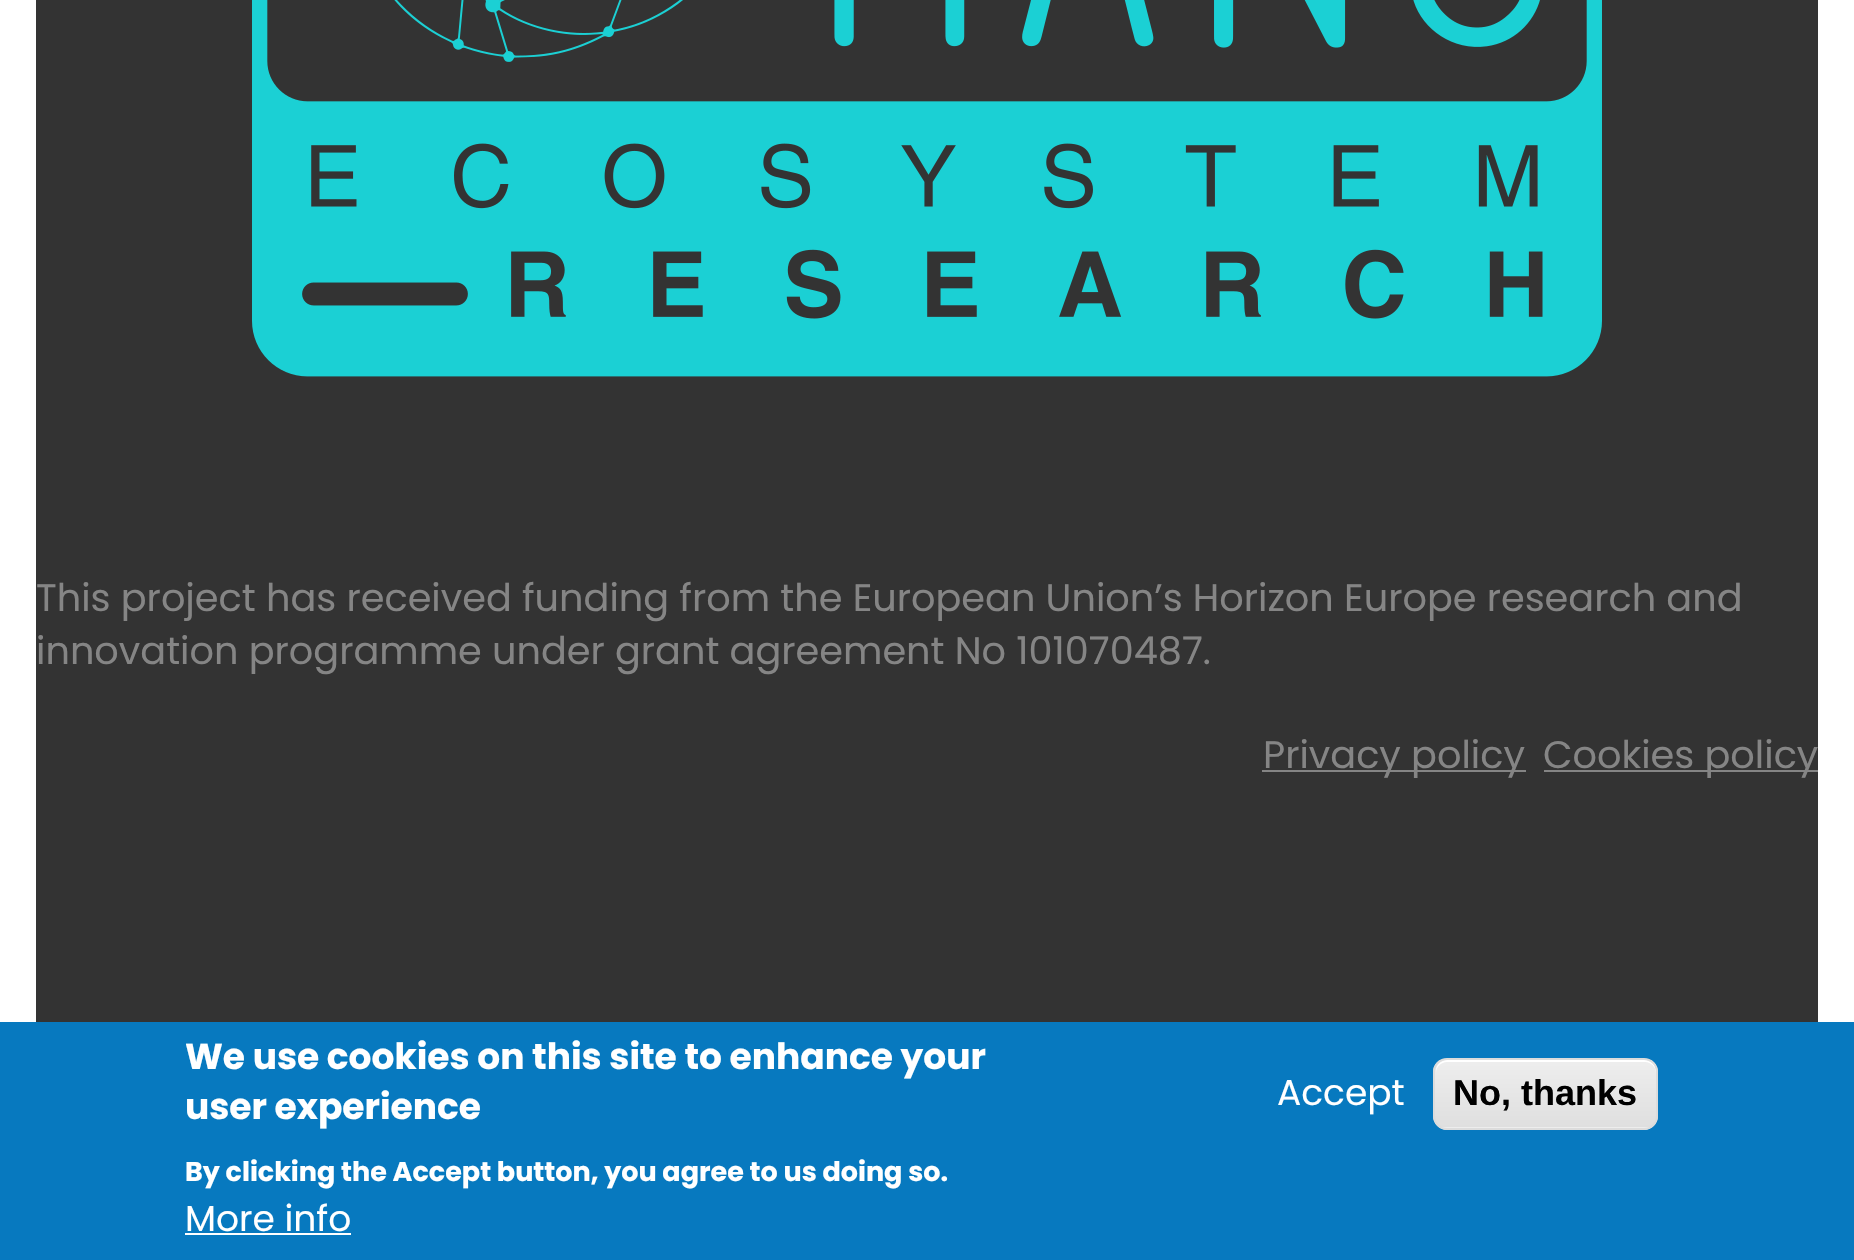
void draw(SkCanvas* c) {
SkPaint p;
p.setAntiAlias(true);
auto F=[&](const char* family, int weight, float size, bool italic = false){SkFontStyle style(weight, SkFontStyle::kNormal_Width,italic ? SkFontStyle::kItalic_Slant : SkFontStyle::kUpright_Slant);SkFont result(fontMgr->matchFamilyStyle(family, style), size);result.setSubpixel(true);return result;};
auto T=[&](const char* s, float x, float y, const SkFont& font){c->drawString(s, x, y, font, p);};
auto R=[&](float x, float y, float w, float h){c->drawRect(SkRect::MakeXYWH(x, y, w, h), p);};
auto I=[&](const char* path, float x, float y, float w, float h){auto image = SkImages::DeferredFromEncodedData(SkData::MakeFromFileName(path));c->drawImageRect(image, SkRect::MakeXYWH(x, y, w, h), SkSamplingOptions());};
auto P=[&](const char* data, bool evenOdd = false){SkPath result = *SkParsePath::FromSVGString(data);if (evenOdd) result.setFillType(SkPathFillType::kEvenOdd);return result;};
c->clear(0xffffffff);
p.setColor(0xff333333);
R(36,0,1782,1022);
I("1.png",252,0,1350,377);
auto f1 = F("Poppins",400,38.25);
p.setColor(0xff858585);
T("This project has received funding from the European Union’s Horizon Europe research and",36,611,f1);
T("innovation programme under grant agreement No 101070487.",36,664,f1);
R(1262,770,264,2);
T("Privacy policy",1263,768,f1);
R(1544,770,274,2);
T("Cookies policy",1543,768,f1);
p.setColor(0xff0779bf);
R(0,1022,1854,238);
auto f2 = F("Poppins",700,36);
p.setColor(0xffffffff);
T("We use cookies on this site to enhance your",185,1069,f2);
T("user experience",185,1119,f2);
auto f3 = F("Poppins",700,27);
T("By clicking the Accept button, you agree to us doing so.",185,1181,f3);
auto f4 = F("Poppins",400,36);
T("More info",185,1231,f4);
R(185,1233,166,2);
T("Accept",1277,1105,f4);
c->save();
c->clipPath(P("M1447 1058h197c7.5 0 14 6.5 14 14v44c0 7.5-6.5 14-14 14h-197c-7.5 0-14-6.5-14-14v-44c0-7.5 6.5-14 14-14z"),true);
{
const SkColor colors[] = {0xffededed,0xffdfdfdf};
const float stops[] = {.05,1};
const SkPoint ends[] = {{1546,1060}, {1546,1127}};
p.setShader(SkGradientShader::MakeLinear(ends, colors, stops, 2, SkTileMode::kClamp));
p.setAlpha(255);
}
R(1433,1060,225,67);
{
const SkColor colors[] = {0xffededed,0xffdfdfdf};
const float stops[] = {.05,1};
const SkPoint ends[] = {{1546,1127}, {1546,1195}};
p.setShader(SkGradientShader::MakeLinear(ends, colors, stops, 2, SkTileMode::kClamp));
p.setAlpha(255);
}
R(1433,1127,225,3);
c->restore();
p.setShader(nullptr);
p.setColor(0xffffffff);
c->drawPath(P("M1447 1062h198c6 0 11 5 11 11v-2c0-6-5-11-11-11h-198c-6 0-11 5-11 11v2c0-6 5-11 11-11z"),p);
p.setStroke(true);
p.setStrokeWidth(2);
p.setColor(0xffdcdcdc);
c->drawRoundRect(SkRect::MakeXYWH(1434,1059,223,70),13,13,p);
auto f5 = F("Liberation Sans",700,36);
p.setStroke(false);
p.setColor(0xff000000);
T("No, thanks",1453,1105,f5);
}
